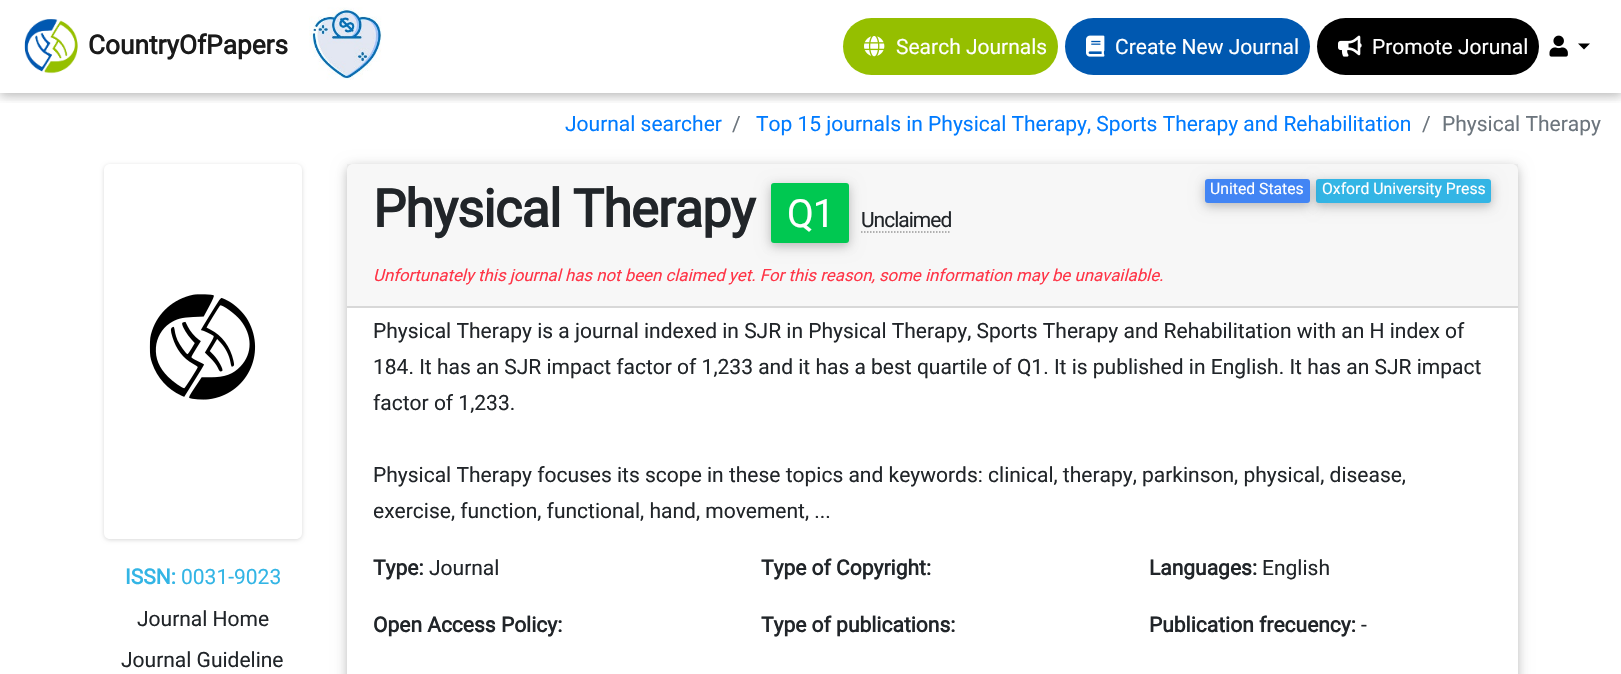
void draw(SkCanvas* c) {
SkPaint p;
p.setAntiAlias(true);
auto F=[&](const char* family, int weight, float size, bool italic = false){SkFontStyle style(weight, SkFontStyle::kNormal_Width,italic ? SkFontStyle::kItalic_Slant : SkFontStyle::kUpright_Slant);SkFont result(fontMgr->matchFamilyStyle(family, style), size);result.setSubpixel(true);return result;};
auto T=[&](const char* s, float x, float y, const SkFont& font){c->drawString(s, x, y, font, p);};
auto L=[&](const char* s, float x, float y, const SkFont& font, const SkPaint& ink, float letter, float word){std::vector<SkGlyphID> glyphs(font.countText(s, strlen(s), SkTextEncoding::kUTF8));std::vector<float> xs(glyphs.size());font.textToGlyphs(s, strlen(s), SkTextEncoding::kUTF8, glyphs);font.getXPos(glyphs, xs, x);float extra = 0;for (size_t i = 0; i < glyphs.size(); i++) {xs[i] += extra;extra += letter + word * (glyphs[i] == font.unicharToGlyph(' '));}c->drawTextBlob(SkTextBlob::MakeFromPosHGlyphs(glyphs, xs, y, font), 0, 0, ink);};
auto R=[&](float x, float y, float w, float h){c->drawRect(SkRect::MakeXYWH(x, y, w, h), p);};
auto Q=[&](float x, float y, float w, float h, float radius){c->drawRoundRect(SkRect::MakeXYWH(x, y, w, h), radius, radius, p);};
auto I=[&](const char* path, float x, float y, float w, float h){auto image = SkImages::DeferredFromEncodedData(SkData::MakeFromFileName(path));c->drawImageRect(image, SkRect::MakeXYWH(x, y, w, h), SkSamplingOptions());};
auto P=[&](const char* data, bool evenOdd = false){SkPath result = *SkParsePath::FromSVGString(data);if (evenOdd) result.setFillType(SkPathFillType::kEvenOdd);return result;};
c->clear(0xffffffff);
c->save();
c->clipRect(SkRect::MakeXYWH(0,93,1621,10));
p.setColor(0x1f000000);
p.setMaskFilter(SkMaskFilter::MakeBlur(kNormal_SkBlurStyle, 7.5));
c->drawRect(SkRect::MakeXYWH(0,3,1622,93),p);
p.setMaskFilter(nullptr);
c->restore();
c->save();
c->clipRect(SkRect::MakeXYWH(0,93,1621,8));
p.setColor(0x29000000);
p.setMaskFilter(SkMaskFilter::MakeBlur(kNormal_SkBlurStyle, 4));
c->drawRect(SkRect::MakeXYWH(0,3,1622,93),p);
p.setMaskFilter(nullptr);
c->restore();
I("1.png",24,19,54,55);
auto f1 = F("Roboto",700,26.25);
p.setColor(0xff1a1a1a);
T("CountryOfPapers",88,54,f1);
I("2.png",309,7,73,73);
p.setColor(0xff95bf00);
Q(843,18,215,57,28.5);
I("3.png",864,36,21,21);
auto f2 = F("Roboto",400,21);
p.setColor(0xffffffff);
T("Search Journals",896,54,f2);
p.setColor(0xff0058b0);
Q(1065,18,245,57,28.5);
I("4.png",1086,35,19,22);
p.setColor(0xffffffff);
T("Create New Journal",1115,54,f2);
p.setColor(0xff000000);
Q(1317,18,222,57,28.5);
I("5.png",1338,35,24,22);
p.setColor(0xffffffff);
T("Promote Jorunal",1372,54,f2);
I("6.png",1549,35,19,22);
p.setColor(0xff000000);
c->drawPath(P("M1578 43.5h12l-6 6z"),p);
p.setColor(0xff007bff);
T("Journal searcher",565,131,f2);
p.setColor(0xff6c757d);
T("/",732,131,f2);
p.setColor(0xff007bff);
T("Top 15 journals in Physical Therapy, Sports Therapy and Rehabilitation",756,131,f2);
p.setColor(0xff6c757d);
T("/",1422,131,f2);
T("Physical Therapy",1442,131,f2);
c->save();
c->clipPath(P("M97 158h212v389h-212zm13 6h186c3.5 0 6 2.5 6 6v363c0 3.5-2.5 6-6 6h-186c-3.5 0-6-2.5-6-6v-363c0-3.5 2.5-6 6-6z",true),true);
p.setColor(0x26000000);
p.setMaskFilter(SkMaskFilter::MakeBlur(kNormal_SkBlurStyle, 2));
c->drawRoundRect(SkRect::MakeXYWH(104,165,198,375),6,6,p);
p.setMaskFilter(nullptr);
c->restore();
I("7.png",149,294,107,106);
auto f3 = F("Roboto",700,21);
p.setColor(0xff33b5e5);
T("ISSN:",125,584,f3);
T("0031-9023",181,584,f2);
p.setColor(0xff212529);
T("Journal Home",137,626,f2);
T("Journal Guideline",121,667,f2);
c->save();
c->clipPath(P("M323 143h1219v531h-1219zm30 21h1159c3.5 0 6 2.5 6 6v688c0 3.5-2.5 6-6 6h-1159c-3.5 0-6-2.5-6-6v-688c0-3.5 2.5-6 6-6z",true),true);
p.setColor(0x1f000000);
p.setMaskFilter(SkMaskFilter::MakeBlur(kNormal_SkBlurStyle, 7.5));
c->drawRoundRect(SkRect::MakeXYWH(347,167,1171,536),6,6,p);
p.setMaskFilter(nullptr);
c->restore();
c->save();
c->clipPath(P("M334 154h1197v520h-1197zm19 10h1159c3.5 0 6 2.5 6 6v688c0 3.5-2.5 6-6 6h-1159c-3.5 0-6-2.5-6-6v-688c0-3.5 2.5-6 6-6z",true),true);
p.setColor(0x29000000);
p.setMaskFilter(SkMaskFilter::MakeBlur(kNormal_SkBlurStyle, 4));
c->drawRoundRect(SkRect::MakeXYWH(347,167,1171,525),6,6,p);
p.setMaskFilter(nullptr);
c->restore();
p.setColor(0x08000000);
R(347,164,1171,142);
p.setColor(0xffd8d8d8);
R(347,306,1171,2);
auto f4 = F("Roboto",700,52.5);
p.setColor(0xff212529);
L("Physical Therapy",373,227,f4,p,-1,0);
p.setColor(0x1f000000);
p.setMaskFilter(SkMaskFilter::MakeBlur(kNormal_SkBlurStyle, 7.5));
c->drawRoundRect(SkRect::MakeXYWH(771,186,78,60),3,3,p);
p.setMaskFilter(nullptr);
p.setColor(0x29000000);
p.setMaskFilter(SkMaskFilter::MakeBlur(kNormal_SkBlurStyle, 4));
c->drawRoundRect(SkRect::MakeXYWH(771,186,78,60),3,3,p);
p.setMaskFilter(nullptr);
p.setColor(0xff00c851);
Q(771,183,78,60,3);
auto f5 = F("Roboto",400,39);
p.setColor(0xffffffff);
L("Q1",787,227,f5,p,-1,0);
p.setColor(0xff212529);
L("Unclaimed",861,227,f2,p,-1,0);
p.setStroke(true);
p.setStrokeWidth(1.5);
p.setColor(0xff999999);
p.setPathEffect(SkDashPathEffect::Make({{1.5f,1.5f}}, 0));
c->drawPath(P("M861 232h90"),p);
p.setPathEffect(nullptr);
p.setStroke(false);
p.setColor(0x1f000000);
p.setMaskFilter(SkMaskFilter::MakeBlur(kNormal_SkBlurStyle, 7.5));
c->drawRoundRect(SkRect::MakeXYWH(1316,182,175,24),3,3,p);
p.setMaskFilter(nullptr);
p.setColor(0x29000000);
p.setMaskFilter(SkMaskFilter::MakeBlur(kNormal_SkBlurStyle, 4));
c->drawRoundRect(SkRect::MakeXYWH(1316,182,175,24),3,3,p);
p.setMaskFilter(nullptr);
p.setColor(0xff33b5e5);
Q(1316,179,175,24,3);
p.setColor(0x1f000000);
p.setMaskFilter(SkMaskFilter::MakeBlur(kNormal_SkBlurStyle, 7.5));
c->drawRoundRect(SkRect::MakeXYWH(1205,182,105,24),3,3,p);
p.setMaskFilter(nullptr);
p.setColor(0x29000000);
p.setMaskFilter(SkMaskFilter::MakeBlur(kNormal_SkBlurStyle, 4));
c->drawRoundRect(SkRect::MakeXYWH(1205,182,105,24),3,3,p);
p.setMaskFilter(nullptr);
p.setColor(0xff4285f4);
Q(1205,179,105,24,3);
auto f6 = F("Roboto",400,15.75);
p.setColor(0xffffffff);
T("United States",1210,194,f6);
T("Oxford University Press",1322,194,f6);
auto f7 = F("Roboto",400,16.8,true);
p.setColor(0xffff3547);
T("Unfortunately this journal has not been claimed yet. For this reason, some information may be unavailable.",373,281,f7);
p.setColor(0xff212529);
T("Physical Therapy is a journal indexed in SJR in Physical Therapy, Sports Therapy and Rehabilitation with an H index of",373,338,f2);
T("184. It has an SJR impact factor of 1,233 and it has a best quartile of Q1. It is published in English. It has an SJR impact",373,374,f2);
T("factor of 1,233.",373,410,f2);
T("Physical Therapy focuses its scope in these topics and keywords: clinical, therapy, parkinson, physical, disease,",373,482,f2);
T("exercise, function, functional, hand, movement, ...",373,518,f2);
T("Type:",373,575,f3);
T("Journal",429,575,f2);
T("Type of Copyright:",761,575,f3);
T("Languages:",1149,575,f3);
T("English",1262,575,f2);
T("Open Access Policy:",373,632,f3);
T("Type of publications:",761,632,f3);
T("Publication frecuency:",1149,632,f3);
T("-",1361,632,f2);
}
